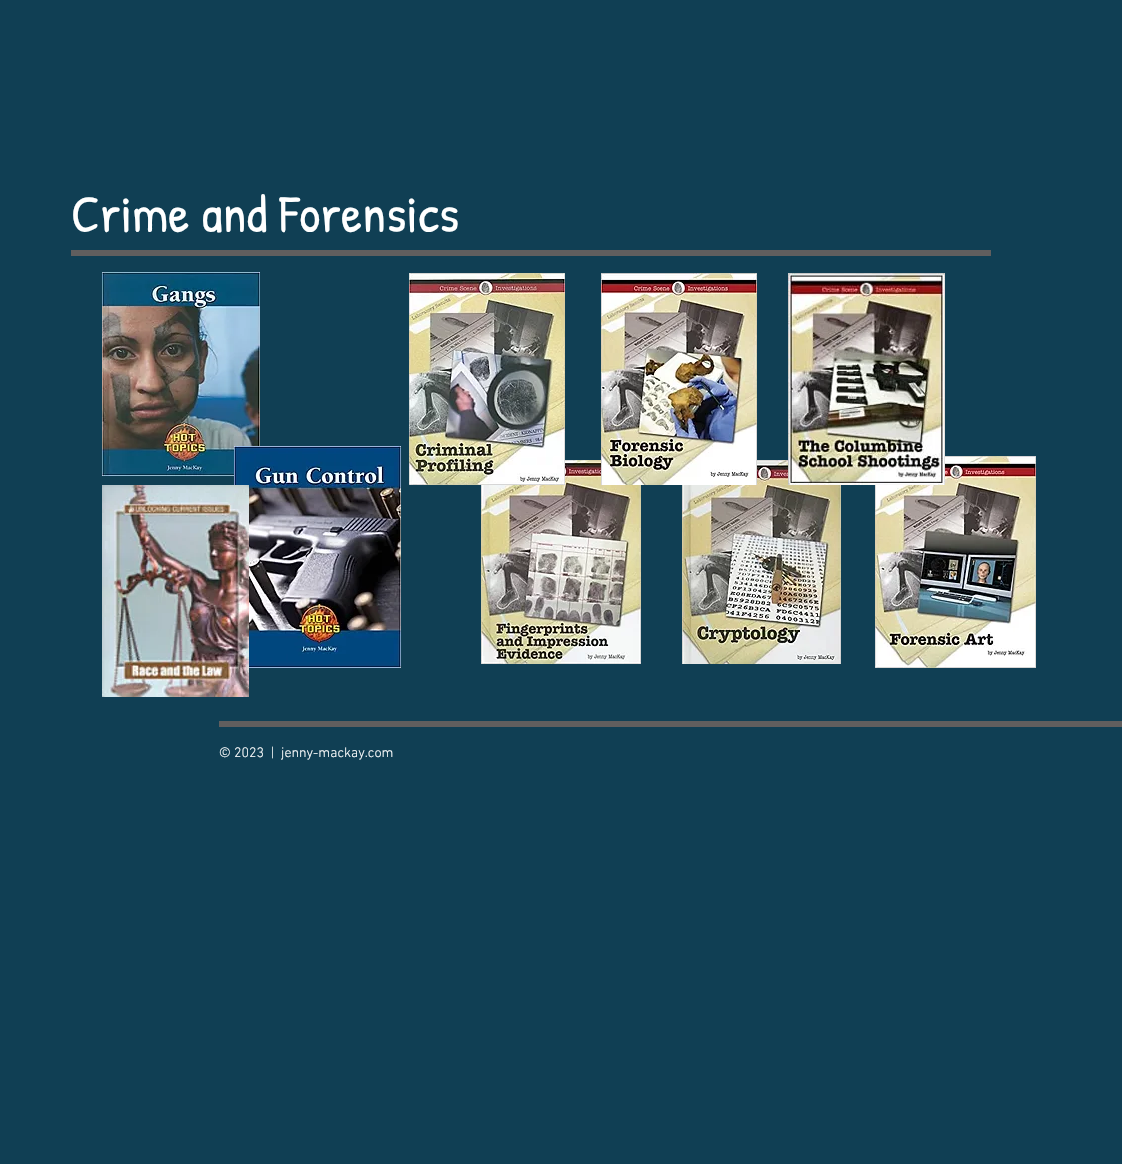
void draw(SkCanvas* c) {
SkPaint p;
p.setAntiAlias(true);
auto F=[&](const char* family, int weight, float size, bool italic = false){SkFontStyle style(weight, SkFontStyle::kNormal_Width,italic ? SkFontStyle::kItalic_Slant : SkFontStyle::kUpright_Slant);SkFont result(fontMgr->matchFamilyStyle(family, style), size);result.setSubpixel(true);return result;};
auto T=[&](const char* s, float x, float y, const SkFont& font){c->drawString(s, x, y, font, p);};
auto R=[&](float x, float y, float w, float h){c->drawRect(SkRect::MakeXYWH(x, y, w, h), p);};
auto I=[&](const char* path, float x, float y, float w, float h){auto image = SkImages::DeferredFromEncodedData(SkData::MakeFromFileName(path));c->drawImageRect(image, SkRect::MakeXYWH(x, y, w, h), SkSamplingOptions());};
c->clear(0xff103f54);
auto f1 = F("Patrick Hand",400,53);
p.setColor(0xffffffff);
T("Crime and Forensics",71,232,f1);
I("1.png",102,272,158,204);
I("7.png",481,460,160,204);
I("2.png",409,273,156,212);
I("8.png",682,460,159,204);
I("3.png",601,273,156,212);
I("9.png",875,456,161,212);
I("4.png",788,273,157,212);
I("6.png",234,446,167,222);
I("5.png",102,485,147,212);
p.setColor(0xff605e5e);
R(71,250,920,6);
R(219,721,903,6);
auto f2 = F("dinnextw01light",300,14);
p.setColor(0xffffffff);
T("© 2023  |  jenny-mackay.com",219,757,f2);
}
